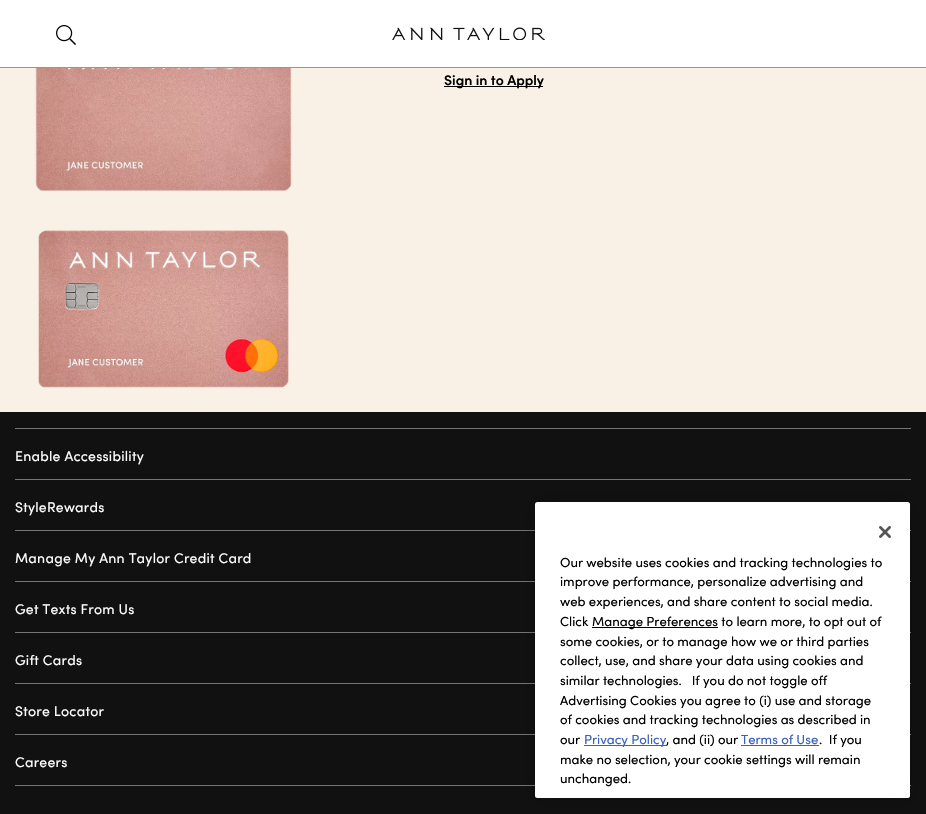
void draw(SkCanvas* c) {
SkPaint p;
p.setAntiAlias(true);
auto F=[&](const char* family, int weight, float size, bool italic = false){SkFontStyle style(weight, SkFontStyle::kNormal_Width,italic ? SkFontStyle::kItalic_Slant : SkFontStyle::kUpright_Slant);SkFont result(fontMgr->matchFamilyStyle(family, style), size);result.setSubpixel(true);return result;};
auto T=[&](const char* s, float x, float y, const SkFont& font){c->drawString(s, x, y, font, p);};
auto L=[&](const char* s, float x, float y, const SkFont& font, const SkPaint& ink, float letter, float word){std::vector<SkGlyphID> glyphs(font.countText(s, strlen(s), SkTextEncoding::kUTF8));std::vector<float> xs(glyphs.size());font.textToGlyphs(s, strlen(s), SkTextEncoding::kUTF8, glyphs);font.getXPos(glyphs, xs, x);float extra = 0;for (size_t i = 0; i < glyphs.size(); i++) {xs[i] += extra;extra += letter + word * (glyphs[i] == font.unicharToGlyph(' '));}c->drawTextBlob(SkTextBlob::MakeFromPosHGlyphs(glyphs, xs, y, font), 0, 0, ink);};
auto R=[&](float x, float y, float w, float h){c->drawRect(SkRect::MakeXYWH(x, y, w, h), p);};
auto Q=[&](float x, float y, float w, float h, float radius){c->drawRoundRect(SkRect::MakeXYWH(x, y, w, h), radius, radius, p);};
auto I=[&](const char* path, float x, float y, float w, float h){auto image = SkImages::DeferredFromEncodedData(SkData::MakeFromFileName(path));c->drawImageRect(image, SkRect::MakeXYWH(x, y, w, h), SkSamplingOptions());};
c->clear(0xff111111);
p.setColor(0xffffffff);
R(0,0,926,67);
p.setColor(0xff969696);
R(0,67,926,1);
I("1.png",56,25,20,20);
I("2.png",392,27,153,13);
p.setColor(0xfff9f1e6);
R(0,68,926,344);
I("3.png",35,68,257,123);
I("4.png",38,230,251,158);
p.setColor(0xff000000);
R(444,86,99,1);
auto f1 = F("Sofia",600,14);
T("Sign in to Apply",444,85,f1);
p.setColor(0xff757575);
R(15,428,896,1);
R(15,479,896,1);
auto f2 = F("Sofia",400,14);
p.setColor(0xffffffff);
L("Enable Accessibility",15,461,f2,p,.25,0);
p.setColor(0xff757575);
R(15,530,896,1);
p.setColor(0xffffffff);
L("StyleRewards",15,512,f2,p,.25,0);
p.setColor(0xff757575);
R(15,581,896,1);
p.setColor(0xffffffff);
L("Manage My Ann Taylor Credit Card",15,563,f2,p,.25,0);
p.setColor(0xff757575);
R(15,632,896,1);
p.setColor(0xffffffff);
L("Get Texts From Us",15,614,f2,p,.25,0);
p.setColor(0xff757575);
R(15,683,896,1);
p.setColor(0xffffffff);
L("Gift Cards",15,665,f2,p,.25,0);
p.setColor(0xff757575);
R(15,734,896,1);
p.setColor(0xffffffff);
L("Store Locator",15,716,f2,p,.25,0);
p.setColor(0xff757575);
R(15,785,896,1);
p.setColor(0xffffffff);
L("Careers",15,767,f2,p,.25,0);
p.setColor(0x33000000);
p.setMaskFilter(SkMaskFilter::MakeBlur(kNormal_SkBlurStyle, 9));
c->drawRoundRect(SkRect::MakeXYWH(535,502,375,296),2.5,2.5,p);
p.setMaskFilter(nullptr);
p.setColor(0xffffffff);
Q(535,502,375,296,2.5);
I("5.png",879,526,12,12);
auto f3 = F("Sofia",400,13.1);
p.setColor(0xff000000);
T("Our website uses cookies and tracking technologies to",560,567,f3);
T("improve performance, personalize advertising and",560,586,f3);
T("web experiences, and share content to social media.",560,606,f3);
T("Click",560,626,f3);
R(592,627,126,1);
T("Manage Preferences to learn more, to opt out of",592,626,f3);
T("some cookies, or to manage how we or third parties",560,646,f3);
T("collect, use, and share your data using cookies and",560,665,f3);
T("similar technologies.   If you do not toggle off",560,685,f3);
T("Advertising Cookies you agree to (i) use and storage",560,705,f3);
T("of cookies and tracking technologies as described in",560,724,f3);
T("our",560,744,f3);
p.setColor(0xff3860be);
R(584,745,82,1);
T("Privacy Policy",584,744,f3);
p.setColor(0xff000000);
T(", and (ii) our",666,744,f3);
p.setColor(0xff3860be);
T("Terms of Use",741,744,f3);
R(741,745,78,1);
p.setColor(0xff000000);
T(".  If you",819,744,f3);
T("make no selection, your cookie settings will remain",560,764,f3);
T("unchanged.",560,783,f3);
}
